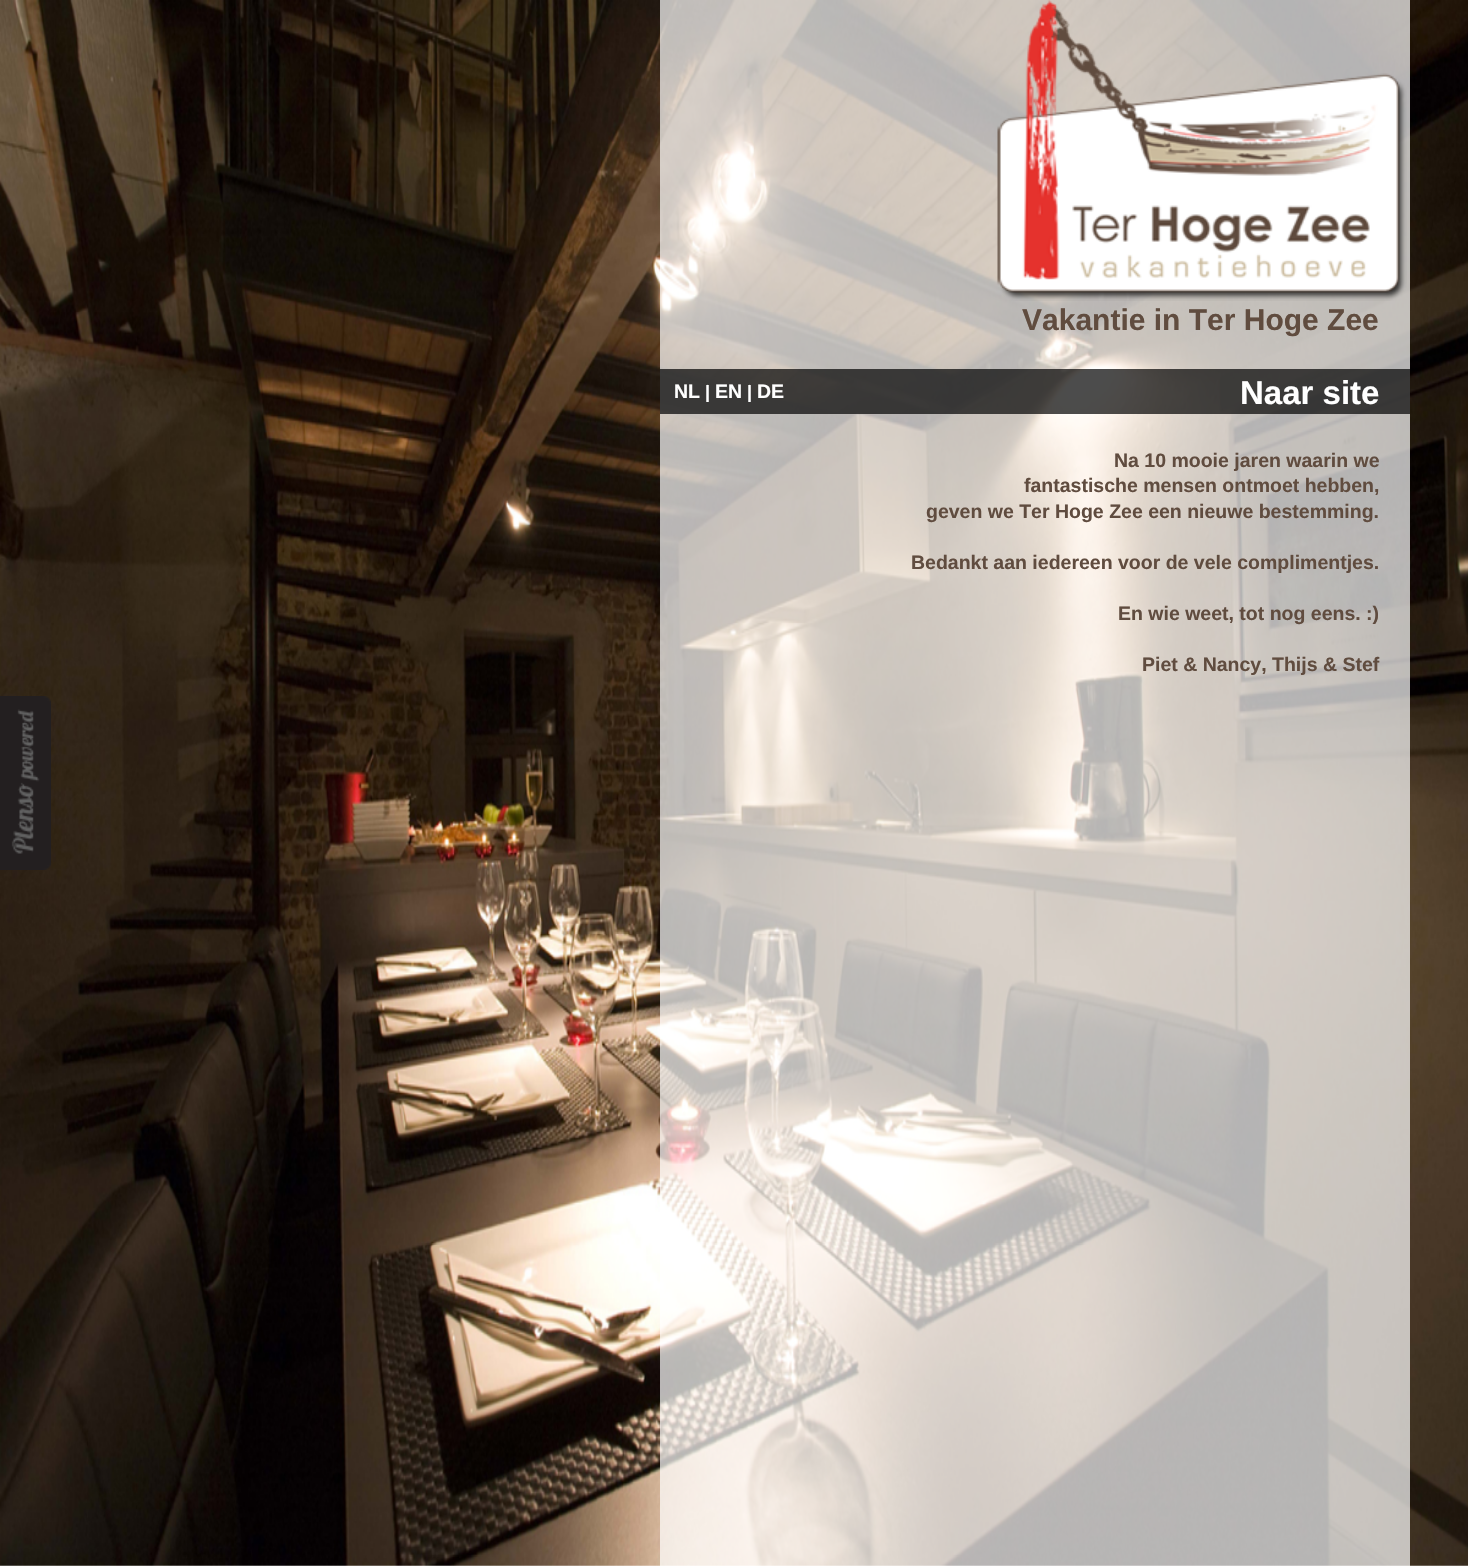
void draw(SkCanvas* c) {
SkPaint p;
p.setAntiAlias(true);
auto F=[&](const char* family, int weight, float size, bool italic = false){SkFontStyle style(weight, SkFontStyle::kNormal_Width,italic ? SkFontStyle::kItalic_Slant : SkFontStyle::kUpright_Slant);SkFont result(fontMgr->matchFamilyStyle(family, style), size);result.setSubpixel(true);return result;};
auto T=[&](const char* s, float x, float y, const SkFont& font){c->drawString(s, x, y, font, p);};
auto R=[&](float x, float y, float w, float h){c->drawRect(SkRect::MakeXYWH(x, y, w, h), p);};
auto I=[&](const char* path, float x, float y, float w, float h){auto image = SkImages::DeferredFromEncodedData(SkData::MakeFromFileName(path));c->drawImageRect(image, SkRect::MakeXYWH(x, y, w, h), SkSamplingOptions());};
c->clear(0xffffffff);
I("1.png",0,0,1468,1566);
p.setColor(0xb3ffffff);
R(660,0,750,1566);
I("2.png",997,0,410,301);
auto f1 = F("Liberation Sans",700,30);
p.setColor(0xff604c3f);
T("Vakantie in Ter Hoge Zee",1022,330,f1);
p.setColor(0xb3000000);
R(660,369,750,45);
auto f2 = F("Liberation Sans",700,19.5);
p.setColor(0xffffffff);
T("NL",674,398,f2);
auto f3 = F("Liberation Sans",700,18);
T("|",705,398,f3);
T("EN",715,398,f2);
T("|",747,398,f3);
T("DE",757,398,f2);
auto f4 = F("Liberation Sans",700,33);
T("Naar site",1240,404,f4);
p.setColor(0xff604c3f);
T("Na 10 mooie jaren waarin we",1114,467,f2);
T("fantastische mensen ontmoet hebben,",1024,492,f2);
T("geven we Ter Hoge Zee een nieuwe bestemming.",926,518,f2);
T("Bedankt aan iedereen voor de vele complimentjes.",911,569,f2);
T("En wie weet, tot nog eens. :)",1118,620,f2);
T("Piet & Nancy, Thijs & Stef",1142,671,f2);
I("3.png",0,696,51,174);
}
